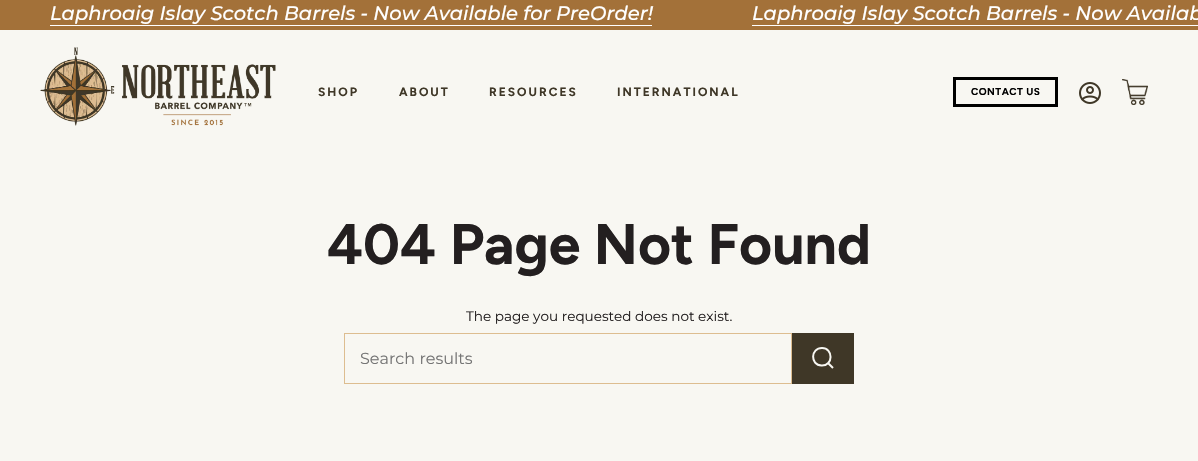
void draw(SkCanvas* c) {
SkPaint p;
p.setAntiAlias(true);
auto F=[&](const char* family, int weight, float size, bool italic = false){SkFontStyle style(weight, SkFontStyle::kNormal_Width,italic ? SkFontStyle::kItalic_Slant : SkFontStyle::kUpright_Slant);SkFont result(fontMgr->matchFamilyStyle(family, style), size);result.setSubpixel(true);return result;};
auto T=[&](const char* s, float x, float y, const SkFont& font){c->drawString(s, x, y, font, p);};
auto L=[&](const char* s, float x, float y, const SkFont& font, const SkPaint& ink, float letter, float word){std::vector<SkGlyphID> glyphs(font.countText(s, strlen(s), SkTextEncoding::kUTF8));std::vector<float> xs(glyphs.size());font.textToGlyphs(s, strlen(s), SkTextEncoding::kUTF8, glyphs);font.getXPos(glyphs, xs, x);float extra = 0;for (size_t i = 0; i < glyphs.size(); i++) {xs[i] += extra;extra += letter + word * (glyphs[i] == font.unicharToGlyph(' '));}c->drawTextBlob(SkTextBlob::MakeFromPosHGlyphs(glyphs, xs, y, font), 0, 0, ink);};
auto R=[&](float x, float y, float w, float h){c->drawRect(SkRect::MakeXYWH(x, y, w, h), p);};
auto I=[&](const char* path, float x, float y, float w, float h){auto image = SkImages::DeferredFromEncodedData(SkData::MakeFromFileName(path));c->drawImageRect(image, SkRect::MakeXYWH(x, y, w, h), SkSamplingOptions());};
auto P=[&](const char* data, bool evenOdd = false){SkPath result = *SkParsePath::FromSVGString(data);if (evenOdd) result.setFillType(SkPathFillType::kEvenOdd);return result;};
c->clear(0xfff8f7f2);
p.setColor(0xffa37139);
R(0,0,1198,30);
auto f1 = F("Montserrat",500,19.55,true);
p.setColor(0xffffffff);
T("Laphroaig Islay Scotch Barrels - Now Available for PreOrder!",50,20,f1);
R(50,25,602,1);
T("Laphroaig Islay Scotch Barrels - Now Availab",752,20,f1);
R(752,25,446,1);
I("1.png",40,47,236,79);
auto f2 = F("Figtree",700,12);
p.setColor(0xff3f3727);
L("SHOP",318,96,f2,p,2,0);
L("ABOUT",399,96,f2,p,2,0);
L("RESOURCES",489,96,f2,p,2,0);
L("INTERNATIONAL",617,96,f2,p,2,0);
p.setStroke(true);
p.setStrokeWidth(3);
p.setColor(0xff000000);
c->drawRect(SkRect::MakeXYWH(954.5,78.5,102,27),p);
auto f3 = F("Figtree",700,10);
p.setStroke(false);
L("CONTACT US",971,95,f3,p,.5,0);
I("2.png",1079,82,22,22);
I("3.png",1122,79,26,26);
auto f4 = F("Figtree",700,57);
p.setColor(0xff231f20);
T("404 Page Not Found",327,264,f4);
auto f5 = F("Montserrat",400,13.6);
T("The page you requested does not exist.",466,321,f5);
p.setStroke(true);
p.setStrokeWidth(1);
p.setColor(0xffddbd90);
c->drawRect(SkRect::MakeXYWH(344.5,333.5,447,50),p);
auto f6 = F("Montserrat",400,16);
p.setStroke(false);
p.setColor(0xff757575);
T("Search results",360,364,f6);
p.setColor(0xff3f3727);
R(792,333,62,51);
p.setStroke(true);
p.setStrokeWidth(2);
p.setColor(0xfff8f7f2);
c->drawPath(P("M822 348c11.5 0 11.5 18-.5 17.5c-11.5-.5-11-17.5 .5-17.5zm6 15l5 5"),p);
}
